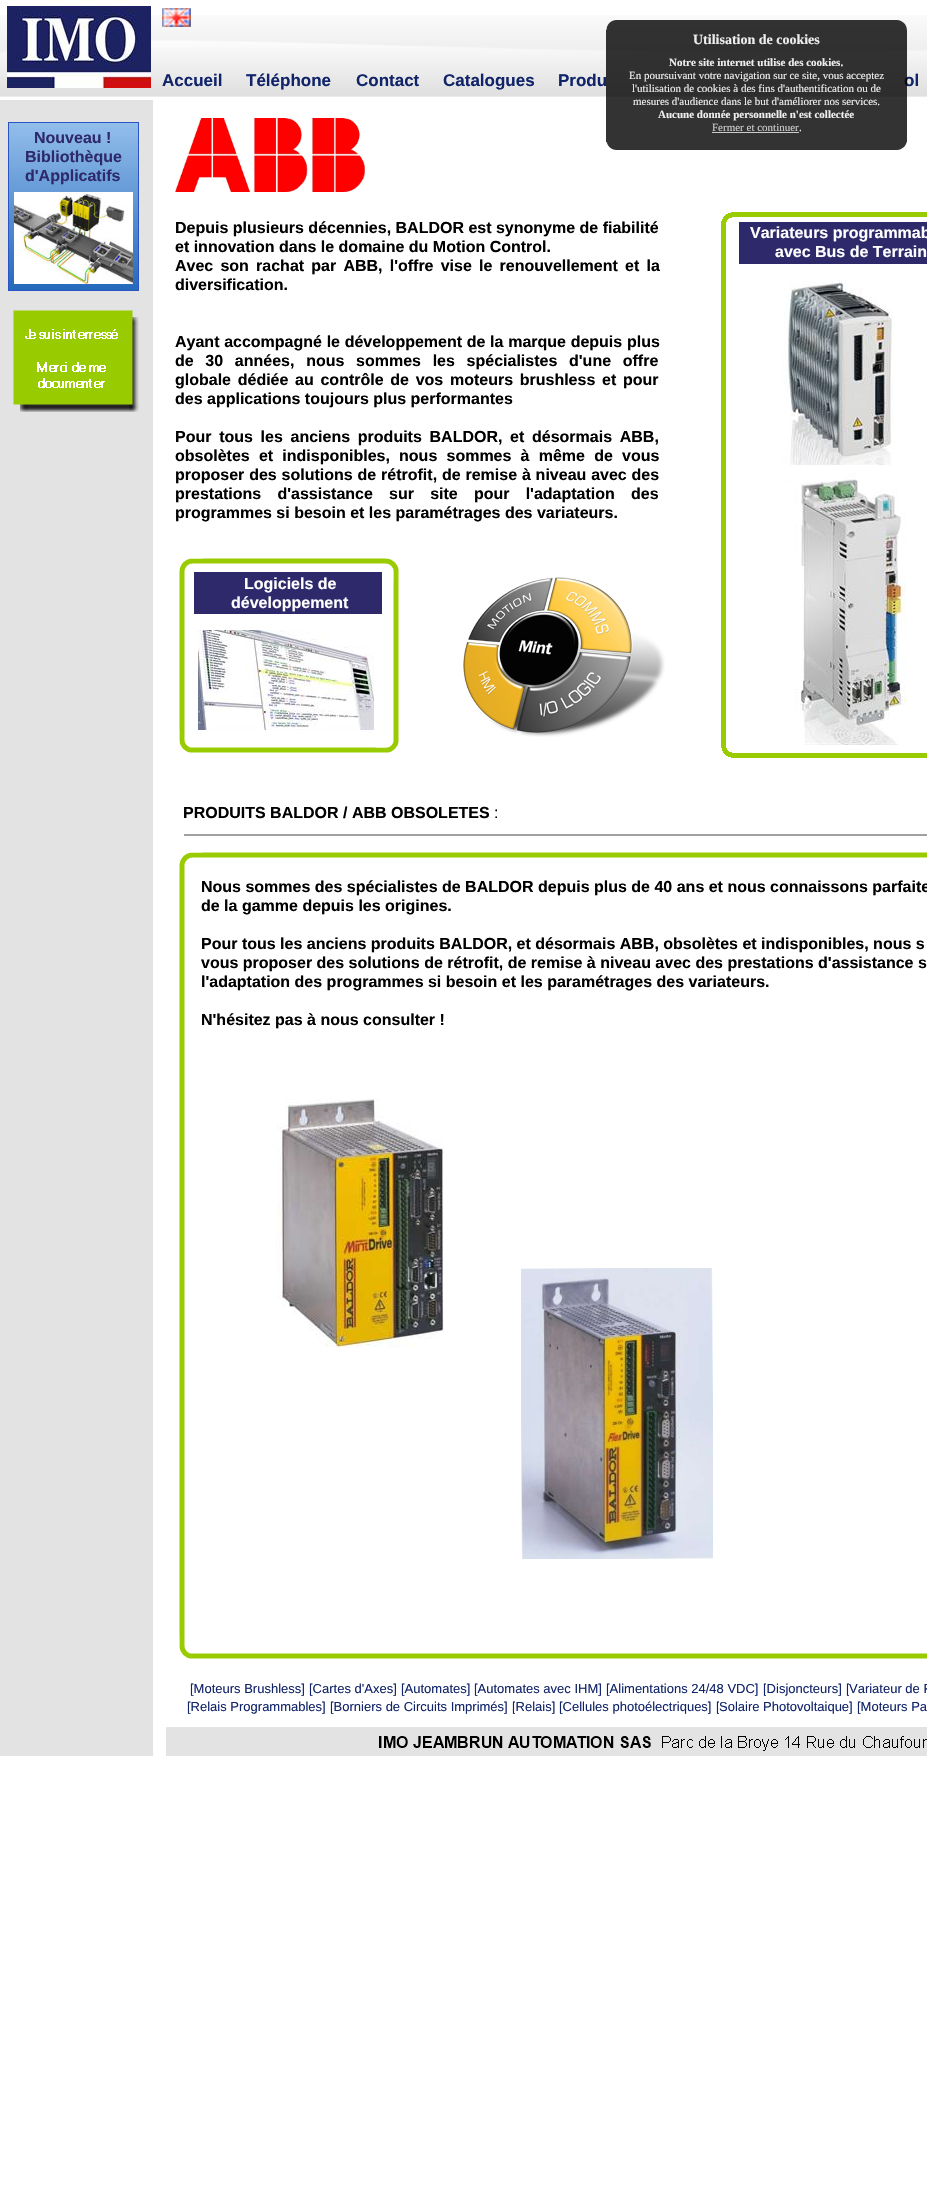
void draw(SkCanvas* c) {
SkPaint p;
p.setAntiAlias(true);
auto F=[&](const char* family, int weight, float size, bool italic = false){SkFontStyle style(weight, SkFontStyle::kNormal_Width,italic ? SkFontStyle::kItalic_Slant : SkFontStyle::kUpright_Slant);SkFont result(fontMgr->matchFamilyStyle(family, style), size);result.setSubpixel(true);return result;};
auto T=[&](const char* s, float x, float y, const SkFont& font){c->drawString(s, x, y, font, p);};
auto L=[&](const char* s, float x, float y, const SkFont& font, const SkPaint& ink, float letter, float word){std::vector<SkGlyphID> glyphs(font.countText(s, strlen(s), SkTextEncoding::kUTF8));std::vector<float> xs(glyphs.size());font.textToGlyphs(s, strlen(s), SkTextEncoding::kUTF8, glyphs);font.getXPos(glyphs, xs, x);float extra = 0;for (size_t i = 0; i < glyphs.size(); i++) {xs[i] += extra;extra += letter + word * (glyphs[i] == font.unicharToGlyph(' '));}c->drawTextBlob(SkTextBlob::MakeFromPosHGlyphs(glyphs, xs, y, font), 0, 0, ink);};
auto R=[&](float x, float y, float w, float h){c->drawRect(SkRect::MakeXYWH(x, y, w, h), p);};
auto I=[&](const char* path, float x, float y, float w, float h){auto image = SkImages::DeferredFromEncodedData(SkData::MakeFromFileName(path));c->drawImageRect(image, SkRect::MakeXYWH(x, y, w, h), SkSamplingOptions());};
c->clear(0xffffffff);
I("5.png",0,15,927,85);
I("1.png",606,20,301,10);
auto f1 = F("Liberation Sans",700,17);
p.setColor(0xff112469);
T("Produ",558,86,f1);
T("ol",904,86,f1);
p.setColor(0xcc000000);
R(606,30,301,112);
auto f2 = F("Liberation Serif",700,14);
p.setColor(0xffeeeeee);
T("Utilisation de cookies",693,44,f2);
auto f3 = F("Liberation Serif",700,11);
T("Notre site internet utilise des cookies.",669,66,f3);
auto f4 = F("Liberation Serif",400,11);
T("En poursuivant votre navigation sur ce site, vous acceptez",629,79,f4);
T("l'utilisation de cookies à des fins d'authentification ou de",632,92,f4);
T("mesures d'audience dans le but d'améliorer nos services.",633,105,f4);
T("Aucune donnée personnelle n'est collectée",658,118,f3);
p.setColor(0xffcccccc);
T("Fermer et continuer",712,131,f4);
R(712,132,87,1);
p.setColor(0xffeeeeee);
T(".",799,131,f4);
I("2.png",606,142,301,8);
I("3.png",7,6,144,82);
I("4.png",162,8,29,19);
p.setColor(0xff112469);
T("Accueil",162,86,f1);
T("Téléphone",246,86,f1);
T("Contact",356,86,f1);
T("Catalogues",443,86,f1);
p.setColor(0xffe3e3e3);
R(0,100,153,1656);
I("6.png",175,118,190,74);
I("7.png",8,122,131,169);
auto f5 = F("Liberation Sans",700,16);
p.setColor(0xff2e296b);
T("Nouveau !",34,143,f5);
T("Bibliothèque",25,162,f5);
T("d'Applicatifs",25,181,f5);
I("8.png",14,192,119,92);
p.setColor(0xff000000);
T("Depuis plusieurs décennies, BALDOR est synonyme de fiabilité",175,233,f5);
T("et innovation dans le domaine du Motion Control.",175,252,f5);
L("Avec son rachat par ABB, l'offre vise le renouvellement et la",175,271,f5,p,0,2.75);
T("diversification.",175,290,f5);
L("Ayant accompagné le développement de la marque depuis plus",175,347,f5,p,0,.25);
L("de 30 années, nous sommes les spécialistes d'une offre",175,366,f5,p,0,7.25);
L("globale dédiée au contrôle de vos moteurs brushless et pour",175,385,f5,p,0,2.25);
T("des applications toujours plus performantes",175,404,f5);
L("Pour tous les anciens produits BALDOR, et désormais ABB,",175,442,f5,p,0,3.25);
L("obsolètes et indisponibles, nous sommes à même de vous",175,461,f5,p,0,4.75);
L("proposer des solutions de rétrofit, de remise à niveau avec des",175,480,f5,p,0,.4);
L("prestations d'assistance sur site pour l'adaptation des",175,499,f5,p,0,11.75);
T("programmes si besoin et les paramétrages des variateurs.",175,518,f5);
I("11.png",782,280,112,204);
I("13.png",790,465,117,280);
I("9.png",721,212,206,546);
p.setColor(0xff2e296b);
R(739,222,188,42);
p.setColor(0xffffffff);
T("Variateurs programmab",750,238,f5);
T("avec Bus de Terrain",775,257,f5);
I("10.png",13,310,126,102);
p.setColor(0xff2e296b);
R(194,572,188,42);
p.setColor(0xffffffff);
T("Logiciels de",244,589,f5);
T("développement",231,608,f5);
I("15.png",198,630,176,100);
I("12.png",179,558,220,195);
I("14.png",462,577,203,160);
p.setColor(0xff000000);
T("PRODUITS BALDOR / ABB OBSOLETES",183,818,f5);
auto f6 = F("Liberation Sans",400,16);
T(":",494,818,f6);
p.setColor(0xffa0a0a0);
R(184,834,743,2);
p.setColor(0xff000000);
T("Nous sommes des spécialistes de BALDOR depuis plus de 40 ans et nous connaissons parfaite",201,892,f5);
T("de la gamme depuis les origines.",201,911,f5);
T("Pour tous les anciens produits BALDOR, et désormais ABB, obsolètes et indisponibles, nous s",201,949,f5);
T("vous proposer des solutions de rétrofit, de remise à niveau avec des prestations d'assistance s",201,968,f5);
T("l'adaptation des programmes si besoin et les paramétrages des variateurs.",201,987,f5);
T("N'hésitez pas à nous consulter !",201,1025,f5);
I("17.png",276,1099,168,249);
I("18.png",521,1268,192,291);
I("16.png",179,852,748,807);
auto f7 = F("Liberation Sans",400,13);
p.setColor(0xff112469);
T("[Moteurs Brushless]",190,1693,f7);
T("[Cartes d'Axes]",309,1693,f7);
T("[Automates]",401,1693,f7);
T("[Automates avec IHM]",474,1693,f7);
T("[Alimentations 24/48 VDC]",606,1693,f7);
T("[Disjoncteurs]",763,1693,f7);
p.setColor(0xffffffff);
R(766,1683,1,13);
p.setColor(0xff112469);
T("[",846,1693,f7);
p.setColor(0xffffffff);
R(849,1683,1,13);
p.setColor(0xff112469);
T("Variateur de F",849,1693,f7);
T("[Relais Programmables]",187,1711,f7);
T("[Borniers de Circuits Imprimés]",330,1711,f7);
T("[Relais]",512,1711,f7);
p.setColor(0xffffffff);
R(515,1701,1,13);
p.setColor(0xff112469);
T("[Cellules photoélectriques]",559,1711,f7);
T("[",716,1711,f7);
p.setColor(0xffffffff);
R(719,1701,1,13);
p.setColor(0xff112469);
T("Solaire Photovoltaique]",719,1711,f7);
T("[Moteurs Pa",857,1711,f7);
I("19.png",166,1727,761,29);
}
